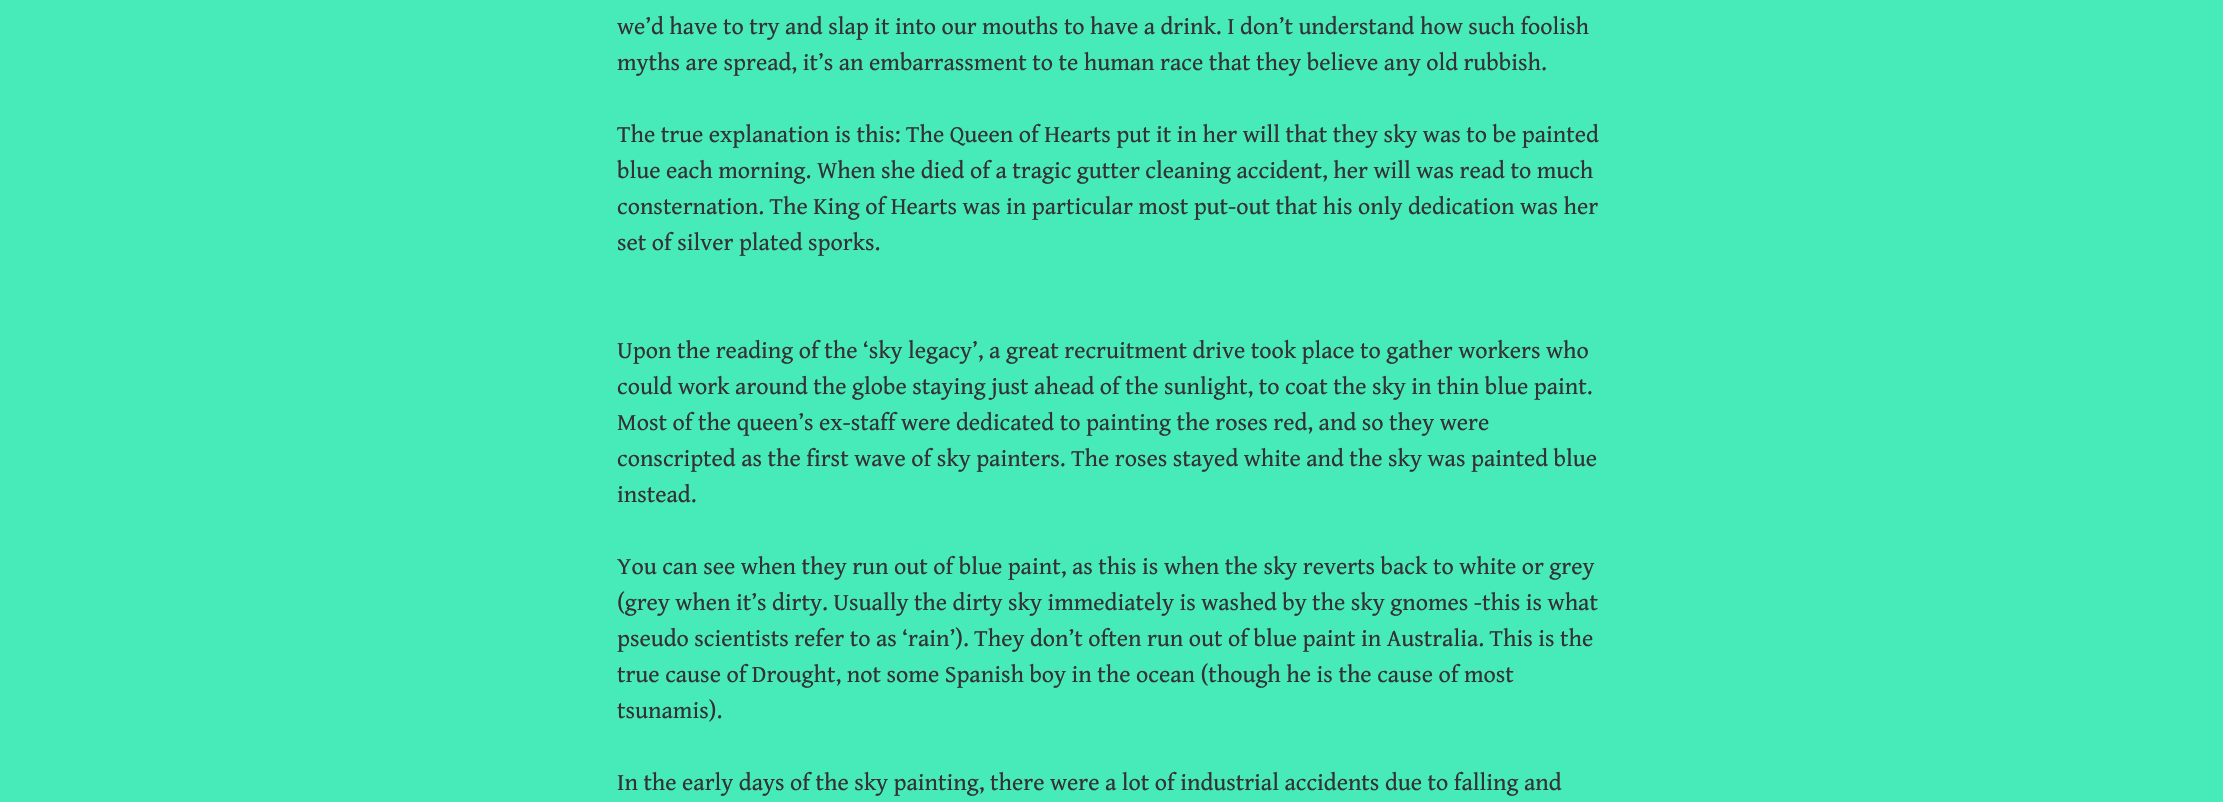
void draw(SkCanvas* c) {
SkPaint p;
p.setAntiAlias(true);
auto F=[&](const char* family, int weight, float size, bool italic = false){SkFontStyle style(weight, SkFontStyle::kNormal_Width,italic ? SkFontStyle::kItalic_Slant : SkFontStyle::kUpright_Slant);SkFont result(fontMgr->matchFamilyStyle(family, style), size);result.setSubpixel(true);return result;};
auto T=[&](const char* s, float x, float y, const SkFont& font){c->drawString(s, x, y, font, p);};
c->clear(0xff47eab9);
auto f1 = F("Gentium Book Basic",400,24);
p.setColor(0xff333333);
T("we’d have to try and slap it into our mouths to have a drink. I don’t understand how such foolish",617,34,f1);
T("myths are spread, it’s an embarrassment to te human race that they believe any old rubbish.",617,70,f1);
T("The true explanation is this: The Queen of Hearts put it in her will that they sky was to be painted",617,142,f1);
T("blue each morning. When she died of a tragic gutter cleaning accident, her will was read to much",617,178,f1);
T("consternation. The King of Hearts was in particular most put-out that his only dedication was her",617,214,f1);
T("set of silver plated sporks.",617,250,f1);
T("Upon the reading of the ‘sky legacy’, a great recruitment drive took place to gather workers who",617,358,f1);
T("could work around the globe staying just ahead of the sunlight, to coat the sky in thin blue paint.",617,394,f1);
T("Most of the queen’s ex-staff were dedicated to painting the roses red, and so they were",617,430,f1);
T("conscripted as the first wave of sky painters. The roses stayed white and the sky was painted blue",617,466,f1);
T("instead.",617,502,f1);
T("You can see when they run out of blue paint, as this is when the sky reverts back to white or grey",617,574,f1);
T("(grey when it’s dirty. Usually the dirty sky immediately is washed by the sky gnomes -this is what",617,610,f1);
T("pseudo scientists refer to as ‘rain’). They don’t often run out of blue paint in Australia. This is the",617,646,f1);
T("true cause of Drought, not some Spanish boy in the ocean (though he is the cause of most",617,682,f1);
T("tsunamis).",617,718,f1);
T("In the early days of the sky painting, there were a lot of industrial accidents due to falling and",617,790,f1);
}
